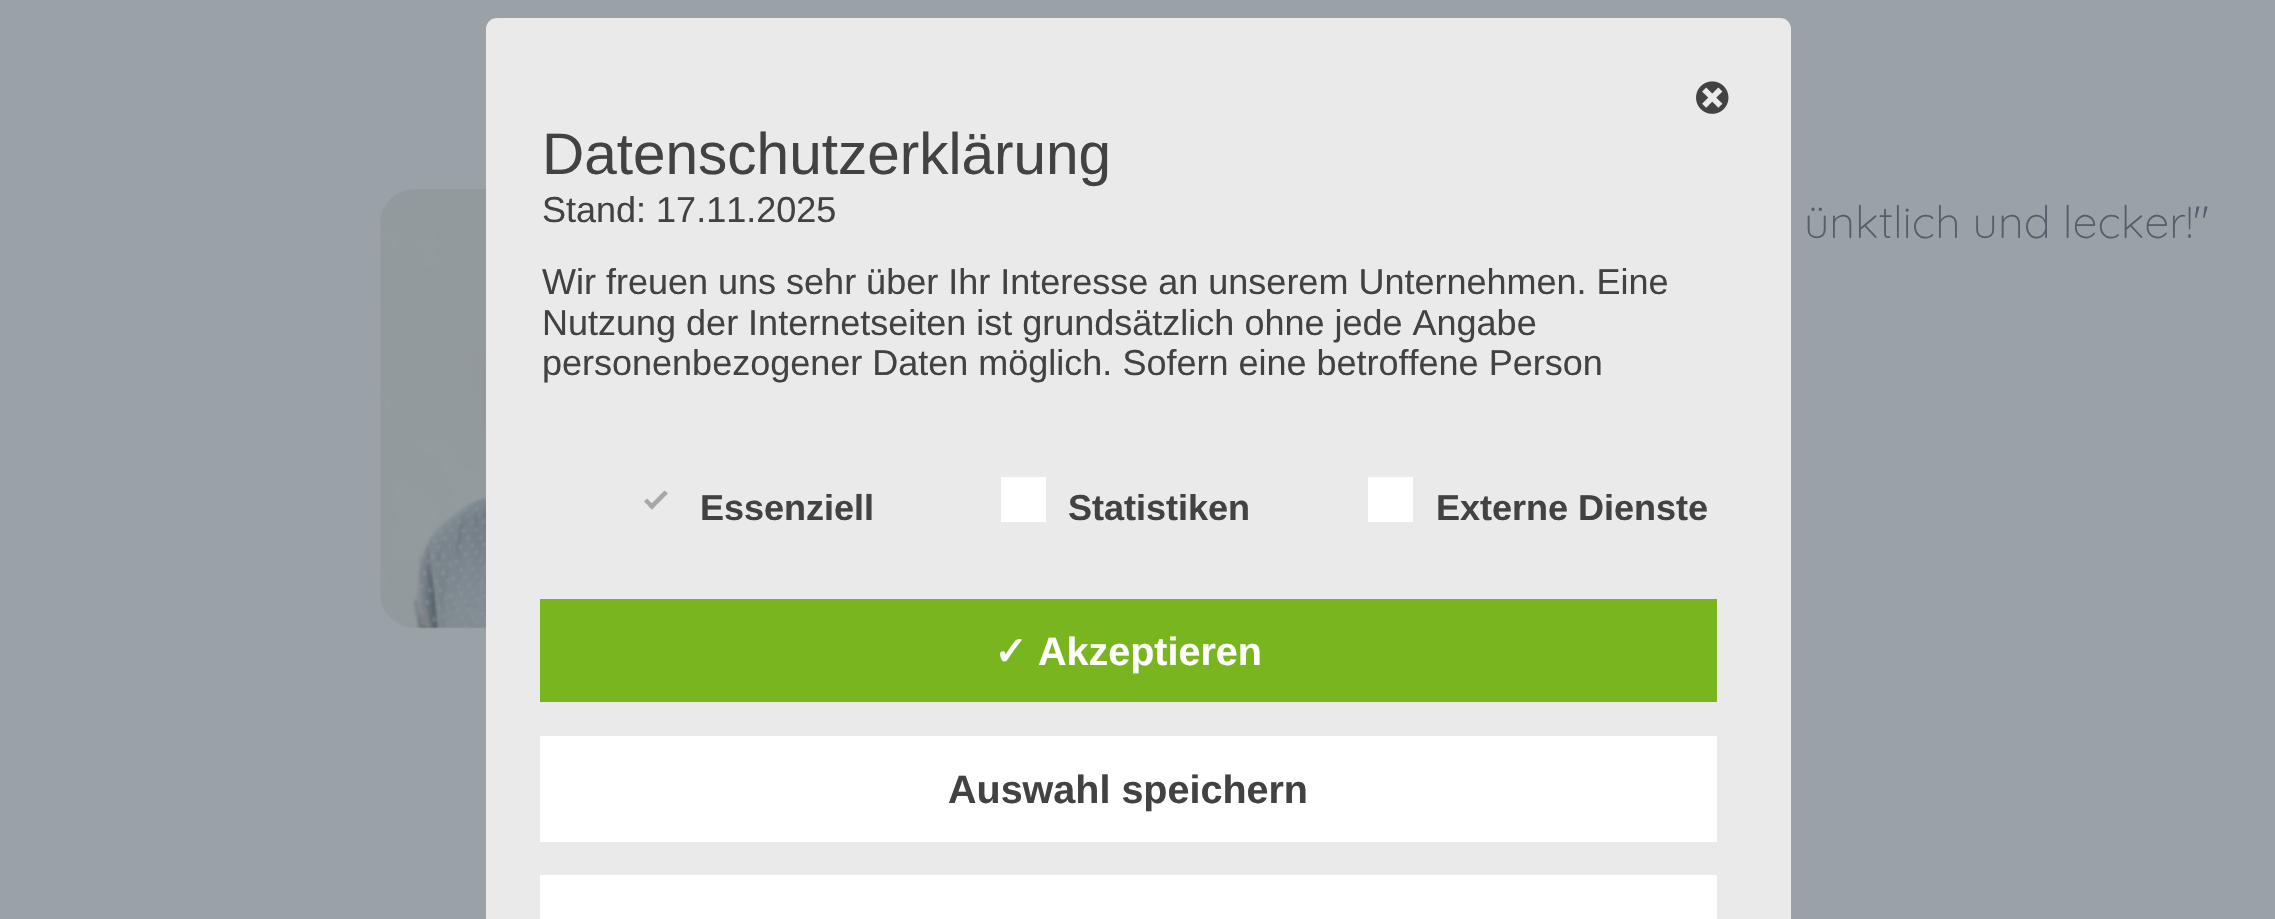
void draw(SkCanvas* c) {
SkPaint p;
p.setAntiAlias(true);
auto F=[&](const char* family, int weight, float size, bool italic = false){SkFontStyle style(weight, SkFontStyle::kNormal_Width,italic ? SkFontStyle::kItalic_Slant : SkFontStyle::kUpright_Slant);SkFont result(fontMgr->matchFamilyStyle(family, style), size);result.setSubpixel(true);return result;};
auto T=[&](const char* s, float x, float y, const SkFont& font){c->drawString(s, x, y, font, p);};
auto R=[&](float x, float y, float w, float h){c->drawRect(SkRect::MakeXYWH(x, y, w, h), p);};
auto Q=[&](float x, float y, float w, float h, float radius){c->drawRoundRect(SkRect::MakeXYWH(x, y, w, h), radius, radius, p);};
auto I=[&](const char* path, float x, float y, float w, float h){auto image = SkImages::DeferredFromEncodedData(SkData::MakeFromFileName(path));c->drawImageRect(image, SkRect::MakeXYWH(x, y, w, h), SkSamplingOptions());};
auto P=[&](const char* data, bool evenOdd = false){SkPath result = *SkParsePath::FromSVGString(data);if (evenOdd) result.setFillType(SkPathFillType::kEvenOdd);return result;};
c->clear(0xff9ba2a7);
p.setColor(0xffeaeaea);
Q(486,18,1305,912,11);
I("1.png",1696,81,33,33);
auto f1 = F("Liberation Sans",400,58.5);
p.setColor(0xff424242);
T("Datenschutzerklärung",542,174,f1);
auto f2 = F("Liberation Sans",400,36);
T("Stand: 17.11.2025",542,222,f2);
T("Wir freuen uns sehr über Ihr Interesse an unserem Unternehmen. Eine",542,294,f2);
T("Nutzung der Internetseiten ist grundsätzlich ohne jede Angabe",542,335,f2);
T("personenbezogener Daten möglich. Sofern eine betroffene Person",542,375,f2);
p.setColor(0xffa7a7a7);
c->drawPath(P("M664.5 490.5l3.5 3l-16 16l-3.5-3z"),p);
c->drawPath(P("M647 498.5l8 8l-3 3l-8-8z"),p);
auto f3 = F("Liberation Sans",700,36);
p.setColor(0xff424242);
T("Essenziell",700,520,f3);
p.setColor(0xffffffff);
R(1001,477,45,45);
p.setColor(0xff424242);
T("Statistiken",1068,520,f3);
p.setColor(0xffffffff);
R(1368,477,45,45);
p.setColor(0xff424242);
T("Externe Dienste",1436,520,f3);
p.setColor(0xff79b51f);
R(540,599,1177,103);
auto f4 = F("DejaVu Sans",700,39.5);
p.setColor(0xffffffff);
T("✓",994,665,f4);
auto f5 = F("Liberation Sans",700,39.5);
T("Akzeptieren",1038,665,f5);
R(540,736,1177,106);
p.setColor(0xff424242);
T("Auswahl speichern",948,803,f5);
p.setColor(0xffffffff);
R(540,875,1177,44);
I("2.png",380,189,106,440);
auto f6 = F("Quicksand",300,45);
p.setColor(0xff555f6b);
T("ünktlich und lecker!\"",1804,238,f6);
}
